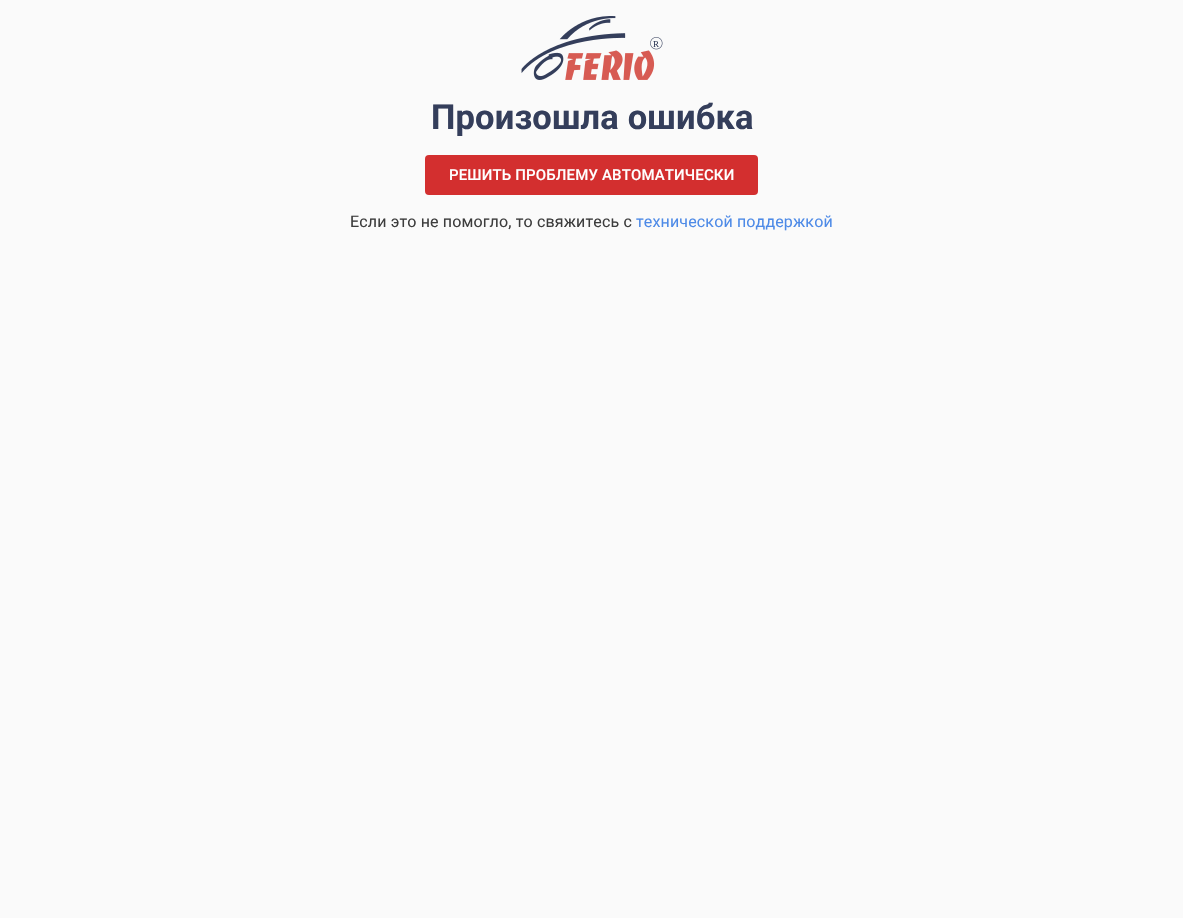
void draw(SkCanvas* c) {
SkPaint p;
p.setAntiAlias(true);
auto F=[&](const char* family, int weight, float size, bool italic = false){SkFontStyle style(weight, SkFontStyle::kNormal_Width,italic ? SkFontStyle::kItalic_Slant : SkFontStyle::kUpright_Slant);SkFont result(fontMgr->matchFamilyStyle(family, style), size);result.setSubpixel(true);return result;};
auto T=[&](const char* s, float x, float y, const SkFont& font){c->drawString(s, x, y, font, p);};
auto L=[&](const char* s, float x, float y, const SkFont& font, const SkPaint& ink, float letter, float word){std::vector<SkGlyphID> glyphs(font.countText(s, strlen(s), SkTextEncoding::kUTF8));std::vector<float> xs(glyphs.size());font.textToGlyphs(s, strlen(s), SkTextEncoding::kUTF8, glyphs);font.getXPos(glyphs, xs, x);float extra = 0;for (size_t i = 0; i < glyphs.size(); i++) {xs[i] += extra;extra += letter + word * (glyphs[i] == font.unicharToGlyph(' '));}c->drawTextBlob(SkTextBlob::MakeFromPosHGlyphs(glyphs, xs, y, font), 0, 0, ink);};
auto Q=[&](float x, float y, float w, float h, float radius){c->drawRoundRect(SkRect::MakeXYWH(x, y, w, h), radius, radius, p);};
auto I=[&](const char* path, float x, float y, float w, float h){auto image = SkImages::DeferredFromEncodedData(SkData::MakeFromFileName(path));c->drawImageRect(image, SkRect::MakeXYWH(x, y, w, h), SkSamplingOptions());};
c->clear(0xfffafafa);
I("1.png",521,16,142,64);
auto f1 = F("Liberation Serif",400,9);
p.setColor(0xff343e5b);
T("R",653,47,f1);
auto f2 = F("Roboto",700,34.5);
L("Произошла ошибка",431,129,f2,p,.15,0);
p.setColor(0xffd32f2f);
Q(425,155,333,40,4);
auto f3 = F("Roboto",500,15);
p.setColor(0xffffffff);
L("РЕШИТЬ ПРОБЛЕМУ АВТОМАТИЧЕСКИ",449,180,f3,p,.15,0);
auto f4 = F("Roboto",400,16);
p.setColor(0xff3d3d3d);
L("Если это не помогло, то свяжитесь с",350,227,f4,p,.15,0);
p.setColor(0xff4d8ae7);
L("технической поддержкой",636,227,f4,p,.15,0);
}
